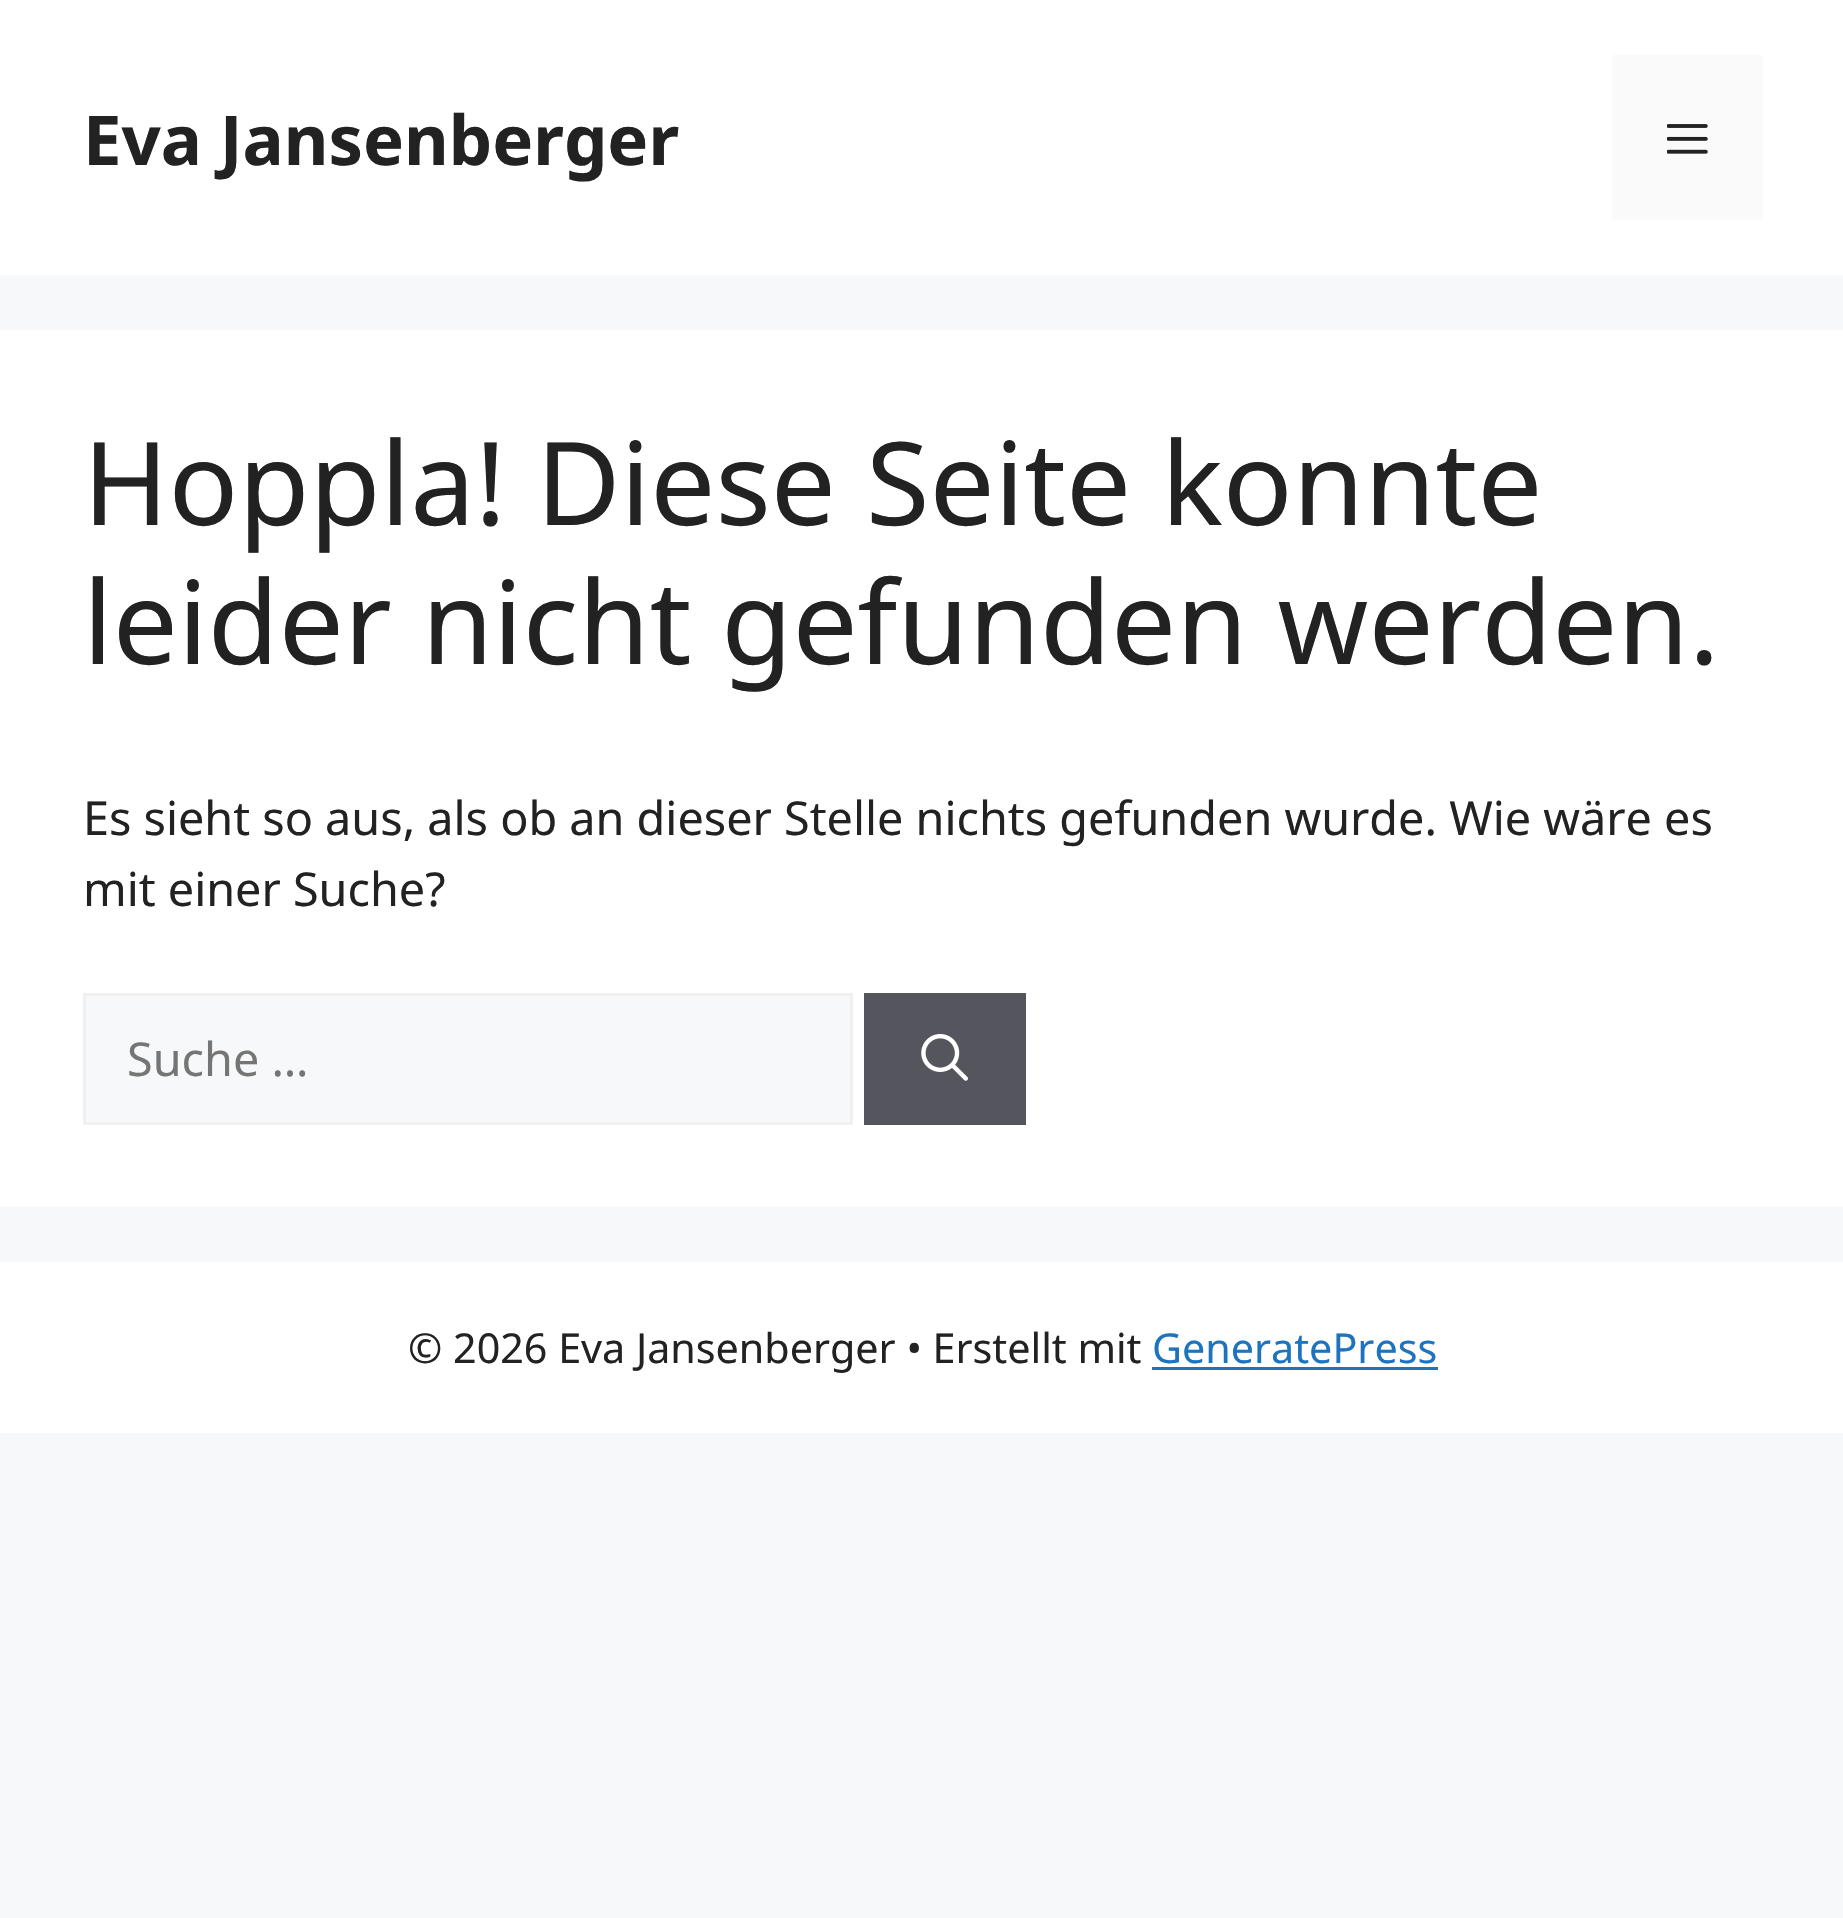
void draw(SkCanvas* c) {
SkPaint p;
p.setAntiAlias(true);
auto F=[&](const char* family, int weight, float size, bool italic = false){SkFontStyle style(weight, SkFontStyle::kNormal_Width,italic ? SkFontStyle::kItalic_Slant : SkFontStyle::kUpright_Slant);SkFont result(fontMgr->matchFamilyStyle(family, style), size);result.setSubpixel(true);return result;};
auto T=[&](const char* s, float x, float y, const SkFont& font){c->drawString(s, x, y, font, p);};
auto R=[&](float x, float y, float w, float h){c->drawRect(SkRect::MakeXYWH(x, y, w, h), p);};
auto I=[&](const char* path, float x, float y, float w, float h){auto image = SkImages::DeferredFromEncodedData(SkData::MakeFromFileName(path));c->drawImageRect(image, SkRect::MakeXYWH(x, y, w, h), SkSamplingOptions());};
c->clear(0xfff7f8f9);
p.setColor(0xffffffff);
R(0,0,1843,275);
auto f1 = F("Noto Sans",700,68.75);
p.setColor(0xff222222);
T("Eva Jansenberger",83,165,f1);
p.setColor(0xfffafafa);
R(1612,55,151,165);
I("1.png",1667,124,41,30);
p.setColor(0xffffffff);
R(0,330,1843,877);
auto f2 = F("Noto Sans",400,115.5);
p.setColor(0xff222222);
T("Hoppla! Diese Seite konnte",83,525,f2);
T("leider nicht gefunden werden.",83,664,f2);
auto f3 = F("Noto Sans",400,46.75);
T("Es sieht so aus, als ob an dieser Stelle nichts gefunden wurde. Wie wäre es",83,835,f3);
T("mit einer Suche?",83,906,f3);
p.setColor(0xfff7f8f9);
c->drawRect(SkRect::MakeXYWH(84.5,994.5,767,129),p);
p.setStroke(true);
p.setStrokeWidth(3);
p.setColor(0xfff0f0f0);
c->drawRect(SkRect::MakeXYWH(84.5,994.5,767,129),p);
p.setStroke(false);
p.setColor(0xff757575);
T("Suche …",127,1076,f3);
p.setColor(0xff55555e);
R(864,993,162,132);
I("2.png",921,1034,47,47);
p.setColor(0xffffffff);
R(0,1262,1843,171);
auto f4 = F("Noto Sans",400,41.25);
p.setColor(0xff222222);
T("© 2026 Eva Jansenberger • Erstellt mit",408,1363,f4);
p.setColor(0xff1e73be);
T("GeneratePress",1152,1363,f4);
R(1152,1367,286,3);
}
